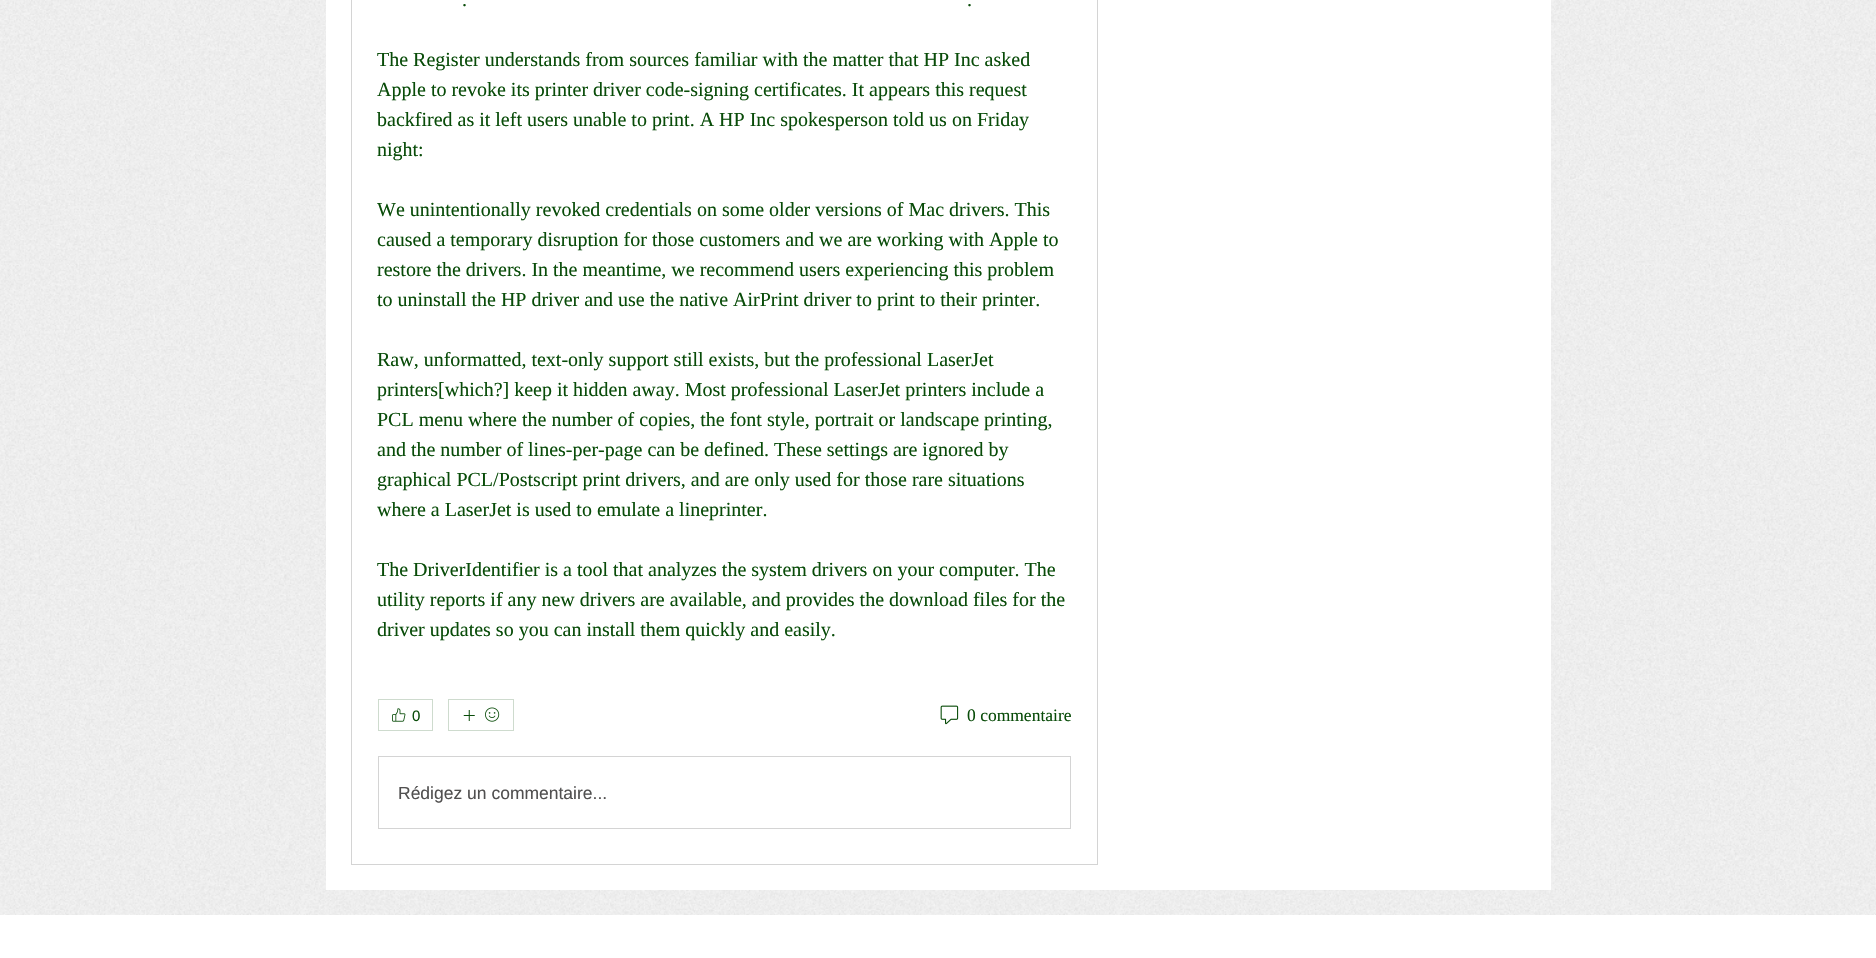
void draw(SkCanvas* c) {
SkPaint p;
p.setAntiAlias(true);
auto F=[&](const char* family, int weight, float size, bool italic = false){SkFontStyle style(weight, SkFontStyle::kNormal_Width,italic ? SkFontStyle::kItalic_Slant : SkFontStyle::kUpright_Slant);SkFont result(fontMgr->matchFamilyStyle(family, style), size);result.setSubpixel(true);return result;};
auto T=[&](const char* s, float x, float y, const SkFont& font){c->drawString(s, x, y, font, p);};
auto R=[&](float x, float y, float w, float h){c->drawRect(SkRect::MakeXYWH(x, y, w, h), p);};
auto I=[&](const char* path, float x, float y, float w, float h){auto image = SkImages::DeferredFromEncodedData(SkData::MakeFromFileName(path));c->drawImageRect(image, SkRect::MakeXYWH(x, y, w, h), SkSamplingOptions());};
c->clear(0xffffffff);
I("1.png",0,0,1876,915);
p.setColor(0xffffffff);
R(326,0,1225,890);
p.setStroke(true);
p.setStrokeWidth(1);
p.setColor(0xffd4d4d4);
c->drawRect(SkRect::MakeXYWH(351.5,-.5,746,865),p);
auto f1 = F("Liberation Serif",400,20);
p.setStroke(false);
p.setColor(0xff094c09);
T(".",462,6,f1);
T(".",967,6,f1);
T("The Register understands from sources familiar with the matter that HP Inc asked",377,66,f1);
T("Apple to revoke its printer driver code-signing certificates. It appears this request",377,96,f1);
T("backfired as it left users unable to print. A HP Inc spokesperson told us on Friday",377,126,f1);
T("night:",377,156,f1);
T("We unintentionally revoked credentials on some older versions of Mac drivers. This",377,216,f1);
T("caused a temporary disruption for those customers and we are working with Apple to",377,246,f1);
T("restore the drivers. In the meantime, we recommend users experiencing this problem",377,276,f1);
T("to uninstall the HP driver and use the native AirPrint driver to print to their printer.",377,306,f1);
T("Raw, unformatted, text-only support still exists, but the professional LaserJet",377,366,f1);
T("printers[which?] keep it hidden away. Most professional LaserJet printers include a",377,396,f1);
T("PCL menu where the number of copies, the font style, portrait or landscape printing,",377,426,f1);
T("and the number of lines-per-page can be defined. These settings are ignored by",377,456,f1);
T("graphical PCL/Postscript print drivers, and are only used for those rare situations",377,486,f1);
T("where a LaserJet is used to emulate a lineprinter.",377,516,f1);
T("The DriverIdentifier is a tool that analyzes the system drivers on your computer. The",377,576,f1);
T("utility reports if any new drivers are available, and provides the download files for the",377,606,f1);
T("driver updates so you can install them quickly and easily.",377,636,f1);
p.setStroke(true);
p.setColor(0xffcedbce);
c->drawRect(SkRect::MakeXYWH(378.5,699.5,54,31),p);
I("2.png",392,708,14,14);
auto f2 = F("Liberation Sans",400,15);
p.setStroke(false);
p.setColor(0xff094c09);
T("0",412,721,f2);
p.setStroke(true);
p.setColor(0xffcedbce);
c->drawRect(SkRect::MakeXYWH(448.5,699.5,65,31),p);
I("3.png",463,710,12,11);
I("4.png",485,707,15,15);
I("5.png",940,705,19,20);
auto f3 = F("Liberation Serif",400,17.5);
p.setStroke(false);
p.setColor(0xff094c09);
T("0 commentaire",967,721,f3);
p.setStroke(true);
p.setColor(0xffd4d4d4);
c->drawRect(SkRect::MakeXYWH(378.5,756.5,692,72),p);
auto f4 = F("Liberation Sans",400,17.5);
p.setStroke(false);
p.setColor(0xff515050);
T("Rédigez un commentaire...",398,799,f4);
}
